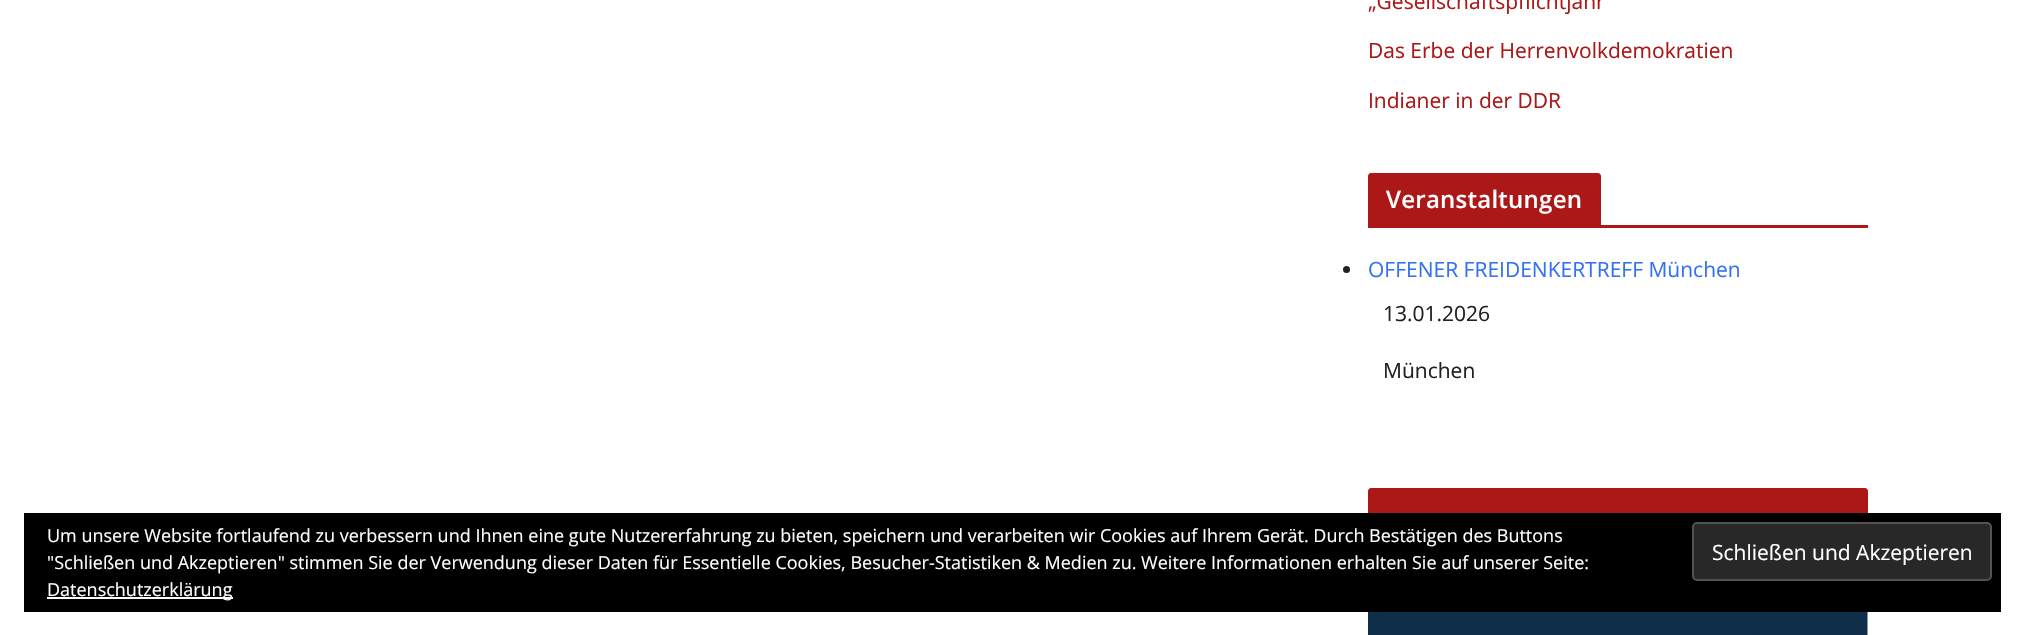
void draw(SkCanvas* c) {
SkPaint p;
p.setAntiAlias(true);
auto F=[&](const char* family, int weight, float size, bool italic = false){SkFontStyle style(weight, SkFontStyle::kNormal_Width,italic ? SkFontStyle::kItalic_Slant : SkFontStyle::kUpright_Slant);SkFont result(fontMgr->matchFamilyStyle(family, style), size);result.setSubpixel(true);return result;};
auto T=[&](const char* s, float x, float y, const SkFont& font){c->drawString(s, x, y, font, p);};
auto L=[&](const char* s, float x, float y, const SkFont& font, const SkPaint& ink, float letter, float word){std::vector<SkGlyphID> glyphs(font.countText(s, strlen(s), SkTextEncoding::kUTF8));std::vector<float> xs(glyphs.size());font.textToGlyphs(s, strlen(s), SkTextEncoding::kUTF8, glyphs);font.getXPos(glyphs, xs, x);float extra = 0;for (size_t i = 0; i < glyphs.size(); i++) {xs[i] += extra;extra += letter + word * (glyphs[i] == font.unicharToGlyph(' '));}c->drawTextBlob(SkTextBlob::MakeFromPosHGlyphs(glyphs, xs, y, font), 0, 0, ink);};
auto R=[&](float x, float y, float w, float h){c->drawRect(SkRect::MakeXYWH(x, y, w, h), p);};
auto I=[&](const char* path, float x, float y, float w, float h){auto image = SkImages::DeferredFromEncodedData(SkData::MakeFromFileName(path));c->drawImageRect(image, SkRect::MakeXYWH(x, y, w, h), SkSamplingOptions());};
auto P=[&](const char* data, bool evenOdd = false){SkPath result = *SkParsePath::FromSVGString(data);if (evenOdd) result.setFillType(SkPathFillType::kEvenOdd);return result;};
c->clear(0xffffffff);
auto f1 = F("Open Sans",400,21);
p.setColor(0xffac1717);
T("„Gesellschaftspflichtjahr",1368,9,f1);
T("Das Erbe der Herrenvolkdemokratien",1368,58,f1);
T("Indianer in der DDR",1368,108,f1);
R(1368,225,500,3);
c->drawPath(P("M1371 173h227c1.5 0 3 1.5 3 3v49h-233v-49c0-1.5 1.5-3 3-3z"),p);
auto f2 = F("Open Sans",600,24);
p.setColor(0xffffffff);
L("Veranstaltungen",1386,208,f2,p,.25,0);
p.setColor(0xff212121);
c->drawCircle(1346.5,269.5,3.5,p);
p.setColor(0xff3372f0);
T("OFFENER FREIDENKERTREFF München",1368,277,f1);
p.setColor(0xff212121);
T("13.01.2026",1383,321,f1);
T("München",1383,378,f1);
p.setColor(0xffac1717);
c->drawPath(P("M1371 488h494c1.5 0 3 1.5 3 3v91h-500v-91c0-1.5 1.5-3 3-3z"),p);
I("1.png",1368,612,500,23);
p.setColor(0xff000000);
R(24,513,1977,99);
auto f3 = F("Open Sans",400,18);
p.setColor(0xffffffff);
T("Um unsere Website fortlaufend zu verbessern und Ihnen eine gute Nutzererfahrung zu bieten, speichern und verarbeiten wir Cookies auf Ihrem Gerät. Durch Bestätigen des Buttons",47,542,f3);
T("\"Schließen und Akzeptieren\" stimmen Sie der Verwendung dieser Daten für Essentielle Cookies, Besucher-Statistiken & Medien zu. Weitere Informationen erhalten Sie auf unserer Seite:",47,569,f3);
p.setColor(0xff282828);
c->drawRoundRect(SkRect::MakeXYWH(1693,523,298,57),4,4,p);
p.setStroke(true);
p.setStrokeWidth(2);
p.setColor(0xff535353);
c->drawRoundRect(SkRect::MakeXYWH(1693,523,298,57),4,4,p);
p.setStroke(false);
p.setColor(0xffffffff);
T("Schließen und Akzeptieren",1712,560,f1);
R(47,597,186,2);
T("Datenschutzerklärung",47,596,f3);
}
